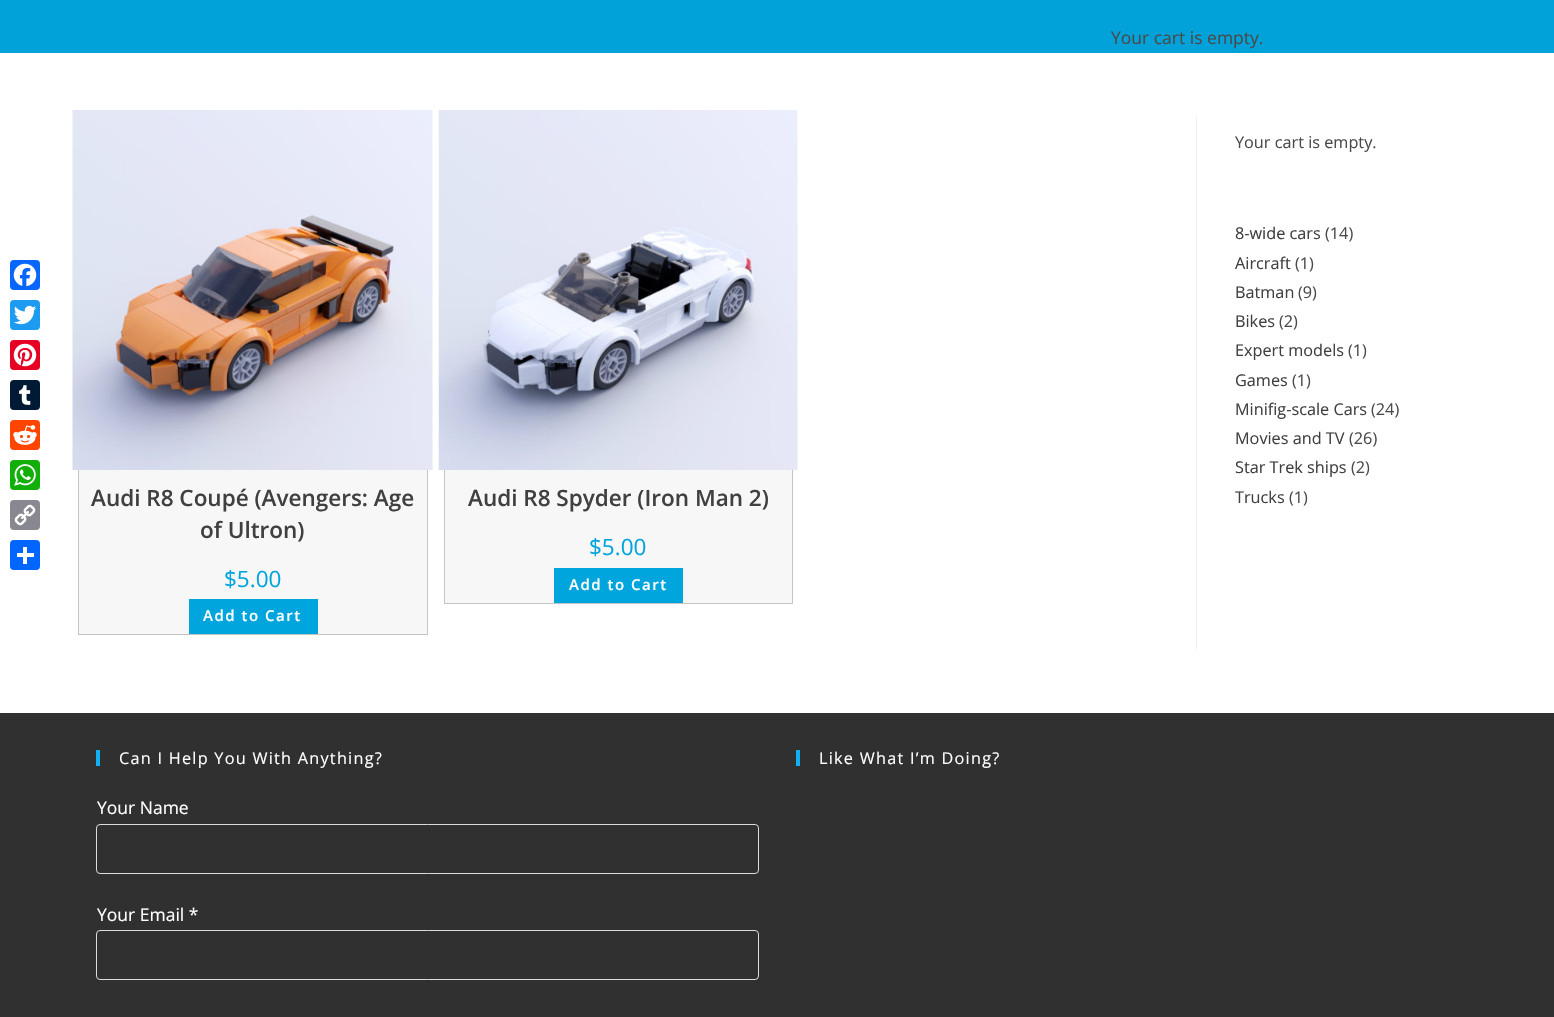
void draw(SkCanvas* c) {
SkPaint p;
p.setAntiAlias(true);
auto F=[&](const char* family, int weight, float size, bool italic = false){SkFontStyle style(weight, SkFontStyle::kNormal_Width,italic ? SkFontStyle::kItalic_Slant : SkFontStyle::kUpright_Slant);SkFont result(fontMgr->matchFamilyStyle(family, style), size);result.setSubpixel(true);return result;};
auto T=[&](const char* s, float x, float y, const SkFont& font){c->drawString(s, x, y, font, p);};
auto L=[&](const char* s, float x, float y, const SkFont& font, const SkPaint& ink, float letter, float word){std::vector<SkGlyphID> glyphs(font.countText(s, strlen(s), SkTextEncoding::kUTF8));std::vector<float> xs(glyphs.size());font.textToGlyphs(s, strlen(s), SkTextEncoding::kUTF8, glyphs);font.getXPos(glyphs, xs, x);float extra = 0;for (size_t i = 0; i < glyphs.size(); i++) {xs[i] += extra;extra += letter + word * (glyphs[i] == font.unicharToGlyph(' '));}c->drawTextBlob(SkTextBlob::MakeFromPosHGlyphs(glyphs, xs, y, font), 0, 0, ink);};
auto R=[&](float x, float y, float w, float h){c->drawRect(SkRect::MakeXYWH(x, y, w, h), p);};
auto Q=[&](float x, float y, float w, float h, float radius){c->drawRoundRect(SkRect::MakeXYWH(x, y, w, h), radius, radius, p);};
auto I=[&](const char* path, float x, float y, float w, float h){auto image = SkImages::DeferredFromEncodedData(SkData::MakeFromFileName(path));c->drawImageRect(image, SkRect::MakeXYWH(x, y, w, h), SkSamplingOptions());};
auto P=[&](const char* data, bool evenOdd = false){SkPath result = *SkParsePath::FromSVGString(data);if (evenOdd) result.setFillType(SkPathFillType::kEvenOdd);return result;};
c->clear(0xffffffff);
p.setColor(0xff0866ff);
Q(10,260,30,30,4);
I("1.png",13,263,24,24);
p.setColor(0xff1d9bf0);
Q(10,300,30,30,4);
I("2.png",14,305,23,20);
p.setColor(0xffe60023);
Q(10,340,30,30,4);
I("3.png",13,343,24,24);
p.setColor(0xff001935);
Q(10,380,30,30,4);
I("4.png",19,385,12,20);
p.setColor(0xffff4500);
Q(10,420,30,30,4);
I("5.png",13,425,24,20);
p.setColor(0xff12af0a);
Q(10,460,30,30,4);
I("6.png",14,464,22,22);
p.setColor(0xff888990);
Q(10,500,30,30,4);
I("7.png",14,504,22,22);
p.setColor(0xff0166ff);
Q(10,540,30,30,4);
p.setColor(0xffffffff);
R(23,547,4,17);
R(17,553,17,4);
p.setColor(0xff00a2d9);
R(0,0,1554,53);
auto f1 = F("Open Sans",400,17.5);
p.setColor(0xff4a4a4a);
T("Your cart is empty.",1111,44,f1);
auto f2 = F("Open Sans",400,16.25);
T("Your cart is empty.",1235,148,f2);
p.setColor(0xff404040);
T("8-wide cars",1235,239,f2);
p.setColor(0xff4a4a4a);
T("(14)",1325,239,f2);
p.setColor(0xff404040);
T("Aircraft",1235,269,f2);
p.setColor(0xff4a4a4a);
T("(1)",1295,269,f2);
p.setColor(0xff404040);
T("Batman",1235,298,f2);
p.setColor(0xff4a4a4a);
T("(9)",1298,298,f2);
p.setColor(0xff404040);
T("Bikes",1235,327,f2);
p.setColor(0xff4a4a4a);
T("(2)",1279,327,f2);
p.setColor(0xff404040);
T("Expert models",1235,356,f2);
p.setColor(0xff4a4a4a);
T("(1)",1348,356,f2);
p.setColor(0xff404040);
T("Games",1235,386,f2);
p.setColor(0xff4a4a4a);
T("(1)",1292,386,f2);
p.setColor(0xff404040);
T("Minifig-scale Cars",1235,415,f2);
p.setColor(0xff4a4a4a);
T("(24)",1371,415,f2);
p.setColor(0xff404040);
T("Movies and TV",1235,444,f2);
p.setColor(0xff4a4a4a);
T("(26)",1349,444,f2);
p.setColor(0xff404040);
T("Star Trek ships",1235,473,f2);
p.setColor(0xff4a4a4a);
T("(2)",1351,473,f2);
p.setColor(0xff404040);
T("Trucks",1235,503,f2);
p.setColor(0xff4a4a4a);
T("(1)",1289,503,f2);
p.setColor(0xfff1f1f1);
R(1196,115,1,535);
p.setColor(0xfff7f7f7);
R(79,470,348,164);
p.setStroke(true);
p.setStrokeWidth(1);
p.setColor(0xffc4c4c4);
c->drawRect(SkRect::MakeXYWH(78.5,115.5,349,519),p);
I("8.png",72,110,361,360);
auto f3 = F("Open Sans",600,22.5);
p.setStroke(false);
p.setColor(0xff404040);
T("Audi R8 Coupé (Avengers: Age",91,506,f3);
T("of Ultron)",200,538,f3);
auto f4 = F("Open Sans",400,22.5);
p.setColor(0xff00a5dd);
T("$5.00",224,587,f4);
R(189,599,129,35);
auto f5 = F("Open Sans",600,15);
p.setColor(0xffffffff);
L("Add to Cart",203,621,f5,p,1.5,0);
p.setColor(0xfff7f7f7);
R(445,470,347,133);
p.setStroke(true);
p.setColor(0xffc4c4c4);
c->drawRect(SkRect::MakeXYWH(444.5,115.5,348,488),p);
I("9.png",438,110,360,360);
p.setStroke(false);
p.setColor(0xff404040);
T("Audi R8 Spyder (Iron Man 2)",468,506,f3);
p.setColor(0xff00a5dd);
T("$5.00",589,555,f4);
R(554,568,129,35);
p.setColor(0xffffffff);
L("Add to Cart",569,590,f5,p,1.5,0);
p.setStroke(true);
p.setStrokeWidth(1.2);
p.setColor(0xff00a5dd);
c->drawPath(P("M613 579c1-1.5 3-2 5-2c9 0 10.5 13 1.5 14.5c-2.5 .5-5 0-6.5-2"),p);
p.setStroke(false);
p.setColor(0xff303030);
R(0,713,1554,304);
p.setColor(0xff13aff0);
R(96,750,4,16);
p.setColor(0xffffffff);
L("Can I Help You With Anything?",119,764,f2,p,1.25,0);
T("Your Name",97,814,f1);
p.setStroke(true);
p.setStrokeWidth(1);
p.setColor(0xffdddddd);
c->drawRoundRect(SkRect::MakeXYWH(96.5,824.5,662,49),3.5,3.5,p);
p.setStroke(false);
p.setColor(0xffffffff);
T("Your Email *",97,921,f1);
p.setStroke(true);
p.setColor(0xffdddddd);
c->drawRoundRect(SkRect::MakeXYWH(96.5,930.5,662,49),3.5,3.5,p);
p.setStroke(false);
p.setColor(0xff13aff0);
R(796,750,4,16);
p.setColor(0xffffffff);
L("Like What I’m Doing?",819,764,f2,p,1.25,0);
}
